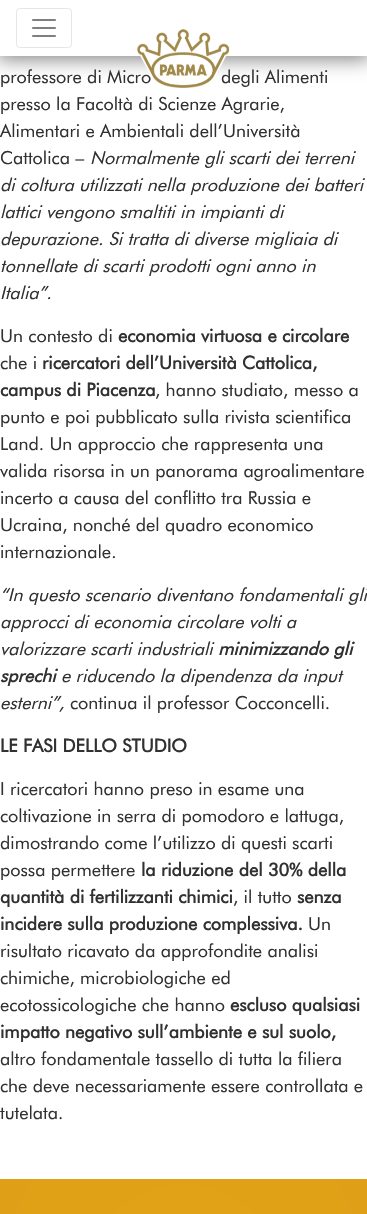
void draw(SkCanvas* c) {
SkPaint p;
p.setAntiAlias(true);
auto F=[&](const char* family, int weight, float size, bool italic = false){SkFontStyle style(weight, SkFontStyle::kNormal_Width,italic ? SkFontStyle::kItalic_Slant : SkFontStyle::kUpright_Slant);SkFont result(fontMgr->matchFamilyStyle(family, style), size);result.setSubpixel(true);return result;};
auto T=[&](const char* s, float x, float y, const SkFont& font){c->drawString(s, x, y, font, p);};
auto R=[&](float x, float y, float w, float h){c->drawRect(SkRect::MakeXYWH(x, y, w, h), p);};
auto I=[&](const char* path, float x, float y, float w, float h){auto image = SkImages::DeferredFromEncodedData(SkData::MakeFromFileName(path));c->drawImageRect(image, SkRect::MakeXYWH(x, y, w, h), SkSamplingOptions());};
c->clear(0xffffffff);
p.setColor(0x80000000);
p.setMaskFilter(SkMaskFilter::MakeBlur(kNormal_SkBlurStyle, 10));
c->drawRect(SkRect::MakeXYWH(-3,-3,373,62),p);
p.setMaskFilter(nullptr);
p.setColor(0xffffffff);
R(0,0,367,56);
p.setStroke(true);
p.setStrokeWidth(1);
p.setColor(0xffe6e6e6);
c->drawRoundRect(SkRect::MakeXYWH(16.5,8.5,55,39),3.5,3.5,p);
I("1.png",32,19,24,18);
auto f1 = F("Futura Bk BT",400,18);
p.setStroke(false);
p.setColor(0xff313131);
T("professore di Micro",0,83,f1);
T("degli Alimenti",221,83,f1);
I("2.png",137,29,93,59);
T("presso la Facoltà di Scienze Agrarie,",0,110,f1);
T("Alimentari e Ambientali dell’Università",0,137,f1);
T("Cattolica –",0,164,f1);
auto f2 = F("Futura Bk BT",400,18,true);
T("Normalmente gli scarti dei terreni",90,164,f2);
T("di coltura utilizzati nella produzione dei batteri",0,191,f2);
T("lattici vengono smaltiti in impianti di",0,218,f2);
T("depurazione. Si tratta di diverse migliaia di",0,245,f2);
T("tonnellate di scarti prodotti ogni anno in",0,272,f2);
T("Italia”.",0,299,f2);
T("Un contesto di",0,342,f1);
auto f3 = F("Futura Bk BT",700,18);
T("economia virtuosa e circolare",118,342,f3);
T("che i",0,369,f1);
T("ricercatori dell’Università Cattolica,",42,369,f3);
T("campus di Piacenza",0,396,f3);
T(", hanno studiato, messo a",155,396,f1);
T("punto e poi pubblicato sulla rivista scientifica",0,423,f1);
T("Land. Un approccio che rappresenta una",0,450,f1);
T("valida risorsa in un panorama agroalimentare",0,477,f1);
T("incerto a causa del conflitto tra Russia e",0,504,f1);
T("Ucraina, nonché del quadro economico",0,531,f1);
T("internazionale.",0,558,f1);
T("“In questo scenario diventano fondamentali gli",0,601,f2);
T("approcci di economia circolare volti a",0,628,f2);
T("valorizzare scarti industriali",0,655,f2);
auto f4 = F("Futura Bk BT",700,18,true);
T("minimizzando gli",218,655,f4);
T("sprechi",0,682,f4);
T("e riducendo la dipendenza da input",61,682,f2);
T("esterni”,",0,709,f2);
T("continua il professor Cocconcelli.",70,709,f1);
T("LE FASI DELLO STUDIO",0,752,f3);
T("I ricercatori hanno preso in esame una",0,795,f1);
T("coltivazione in serra di pomodoro e lattuga,",0,822,f1);
T("dimostrando come l’utilizzo di questi scarti",0,849,f1);
T("possa permettere",0,876,f1);
T("la riduzione del 30% della",141,876,f3);
T("quantità di fertilizzanti chimici",0,903,f3);
T(", il tutto",233,903,f1);
T("senza",297,903,f3);
T("incidere sulla produzione complessiva.",0,930,f3);
T("Un",308,930,f1);
T("risultato ricavato da approfondite analisi",0,957,f1);
T("chimiche, microbiologiche ed",0,984,f1);
T("ecotossicologiche che hanno",0,1011,f1);
T("escluso qualsiasi",230,1011,f3);
T("impatto negativo sull’ambiente e sul suolo,",0,1038,f3);
T("altro fondamentale tassello di tutta la filiera",0,1065,f1);
T("che deve necessariamente essere controllata e",0,1092,f1);
T("tutelata.",0,1119,f1);
{
const SkColor colors[] = {0xffe4a417,0xffdfa017};
const float stops[] = {.2,1};
SkMatrix m = SkMatrix::Translate(184,1592).preScale(260,584);
p.setShader(SkGradientShader::MakeRadial({0, 0}, 1, colors, stops, 2, SkTileMode::kClamp, 0, &m));
p.setAlpha(255);
}
R(0,1179,367,35);
}
